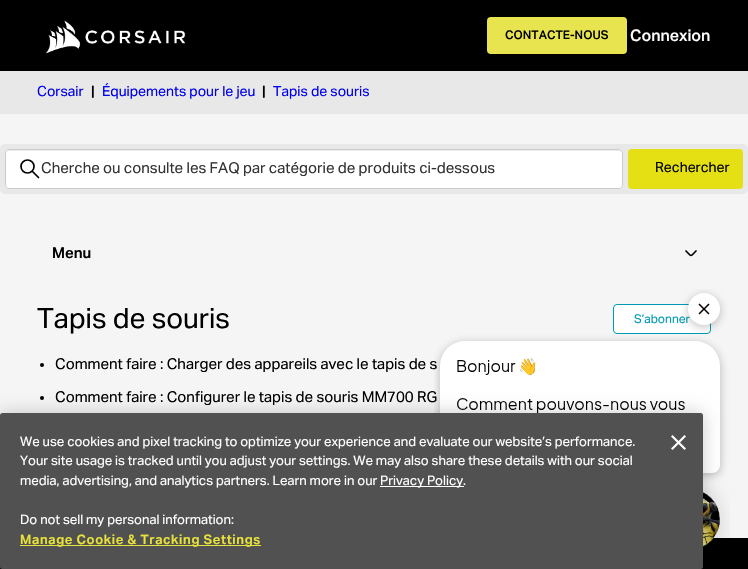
void draw(SkCanvas* c) {
SkPaint p;
p.setAntiAlias(true);
auto F=[&](const char* family, int weight, float size, bool italic = false){SkFontStyle style(weight, SkFontStyle::kNormal_Width,italic ? SkFontStyle::kItalic_Slant : SkFontStyle::kUpright_Slant);SkFont result(fontMgr->matchFamilyStyle(family, style), size);result.setSubpixel(true);return result;};
auto T=[&](const char* s, float x, float y, const SkFont& font){c->drawString(s, x, y, font, p);};
auto L=[&](const char* s, float x, float y, const SkFont& font, const SkPaint& ink, float letter, float word){std::vector<SkGlyphID> glyphs(font.countText(s, strlen(s), SkTextEncoding::kUTF8));std::vector<float> xs(glyphs.size());font.textToGlyphs(s, strlen(s), SkTextEncoding::kUTF8, glyphs);font.getXPos(glyphs, xs, x);float extra = 0;for (size_t i = 0; i < glyphs.size(); i++) {xs[i] += extra;extra += letter + word * (glyphs[i] == font.unicharToGlyph(' '));}c->drawTextBlob(SkTextBlob::MakeFromPosHGlyphs(glyphs, xs, y, font), 0, 0, ink);};
auto R=[&](float x, float y, float w, float h){c->drawRect(SkRect::MakeXYWH(x, y, w, h), p);};
auto Q=[&](float x, float y, float w, float h, float radius){c->drawRoundRect(SkRect::MakeXYWH(x, y, w, h), radius, radius, p);};
auto I=[&](const char* path, float x, float y, float w, float h){auto image = SkImages::DeferredFromEncodedData(SkData::MakeFromFileName(path));c->drawImageRect(image, SkRect::MakeXYWH(x, y, w, h), SkSamplingOptions());};
auto P=[&](const char* data, bool evenOdd = false){SkPath result = *SkParsePath::FromSVGString(data);if (evenOdd) result.setFillType(SkPathFillType::kEvenOdd);return result;};
c->clear(0xfff5f5f5);
p.setColor(0xff000000);
R(0,0,748,71);
I("1.png",46,20,140,34);
p.setColor(0xffe7e450);
Q(487,17,140,37,4);
auto f1 = F("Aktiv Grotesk",500,12);
p.setColor(0xff000000);
T("CONTACTE-NOUS",505,39,f1);
auto f2 = F("Aktiv Grotesk",500,16);
p.setColor(0xffffffff);
T("Connexion",630,41,f2);
p.setColor(0xffe8e8e8);
R(0,71,748,43);
auto f3 = F("Aktiv Grotesk",400,14);
p.setColor(0xff0000ee);
T("Corsair",37,96,f3);
auto f4 = F("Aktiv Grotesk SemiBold",600,14);
p.setColor(0xff000000);
T("|",91,96,f4);
p.setColor(0xff0000ee);
T("Équipements pour le jeu",102,96,f3);
p.setColor(0xff000000);
T("|",262,96,f4);
p.setColor(0xff0000ee);
T("Tapis de souris",273,96,f3);
p.setColor(0xffe8e8e8);
Q(0,144,748,50,5);
p.setColor(0xffffffff);
Q(5,149,618,40,4);
p.setColor(0xffececec);
c->drawPath(P("M9 151h610c2 0 3 1 3 3v-1c0-2-1-3-3-3h-610c-2 0-3 1-3 3v1c0-2 1-3 3-3z"),p);
p.setStroke(true);
p.setStrokeWidth(1);
p.setColor(0xffcccccc);
c->drawRoundRect(SkRect::MakeXYWH(5.5,149.5,617,39),3.5,3.5,p);
p.setStrokeWidth(1.7);
p.setColor(0xff000000);
c->drawCircle(27.5,166.5,6.5,p);
p.setStrokeCap(SkPaint::kRound_Cap);
c->drawPath(P("M38.5 177.5l-6-6"),p);
auto f5 = F("Aktiv Grotesk",400,15);
p.setStroke(false);
p.setColor(0xff333333);
T("Cherche ou consulte les FAQ par catégorie de produits ci-dessous",41,173,f5);
p.setColor(0xffe4e013);
Q(628,149,115,40,4);
p.setColor(0xff000000);
T("Rechercher",655,172,f3);
auto f6 = F("Aktiv Grotesk SemiBold",600,15);
T("Menu",52,258,f6);
p.setStroke(true);
c->drawPath(P("M686 251c6 6 4 6 10 0"),p);
auto f7 = F("Aktiv Grotesk",400,28);
p.setStroke(false);
T("Tapis de souris",37,328,f7);
p.setColor(0xffffffff);
c->drawRoundRect(SkRect::MakeXYWH(613.5,304.5,97,29),3.5,3.5,p);
p.setStroke(true);
p.setStrokeWidth(1);
p.setStrokeCap(SkPaint::kButt_Cap);
p.setColor(0xff0099b5);
c->drawRoundRect(SkRect::MakeXYWH(613.5,304.5,97,29),3.5,3.5,p);
auto f8 = F("Aktiv Grotesk",400,12);
p.setStroke(false);
T("S’abonner",634,323,f8);
p.setColor(0xff000000);
c->drawCircle(42,365,2,p);
T("Comment faire : Charger des appareils avec le tapis de s",55,369,f5);
c->drawCircle(42,398,2,p);
T("Comment faire : Configurer le tapis de souris MM700 RG",55,402,f5);
R(0,538,748,31);
I("2.png",434,289,296,261);
p.setColor(0x33000000);
p.setMaskFilter(SkMaskFilter::MakeBlur(kNormal_SkBlurStyle, 9));
c->drawRoundRect(SkRect::MakeXYWH(0,413,703,156),2.5,2.5,p);
p.setMaskFilter(nullptr);
p.setColor(0xff515151);
Q(0,413,703,156,2.5);
auto f9 = F("Aktiv Grotesk",400,13.1);
p.setColor(0xffffffff);
T("We use cookies and pixel tracking to optimize your experience and evaluate our website’s performance.",20,446,f9);
T("Your site usage is tracked until you adjust your settings. We may also share these details with our social",20,465,f9);
T("media, advertising, and analytics partners. Learn more in our",20,485,f9);
R(380,486,84,1);
T("Privacy Policy.",380,485,f9);
T("Do not sell my personal information:",20,524,f9);
I("3.png",671,435,15,15);
p.setColor(0xffe9e43b);
R(20,545,241,1);
auto f10 = F("Aktiv Grotesk SemiBold",600,13.1);
L("Manage Cookie & Tracking Settings",20,544,f10,p,.65,0);
}
